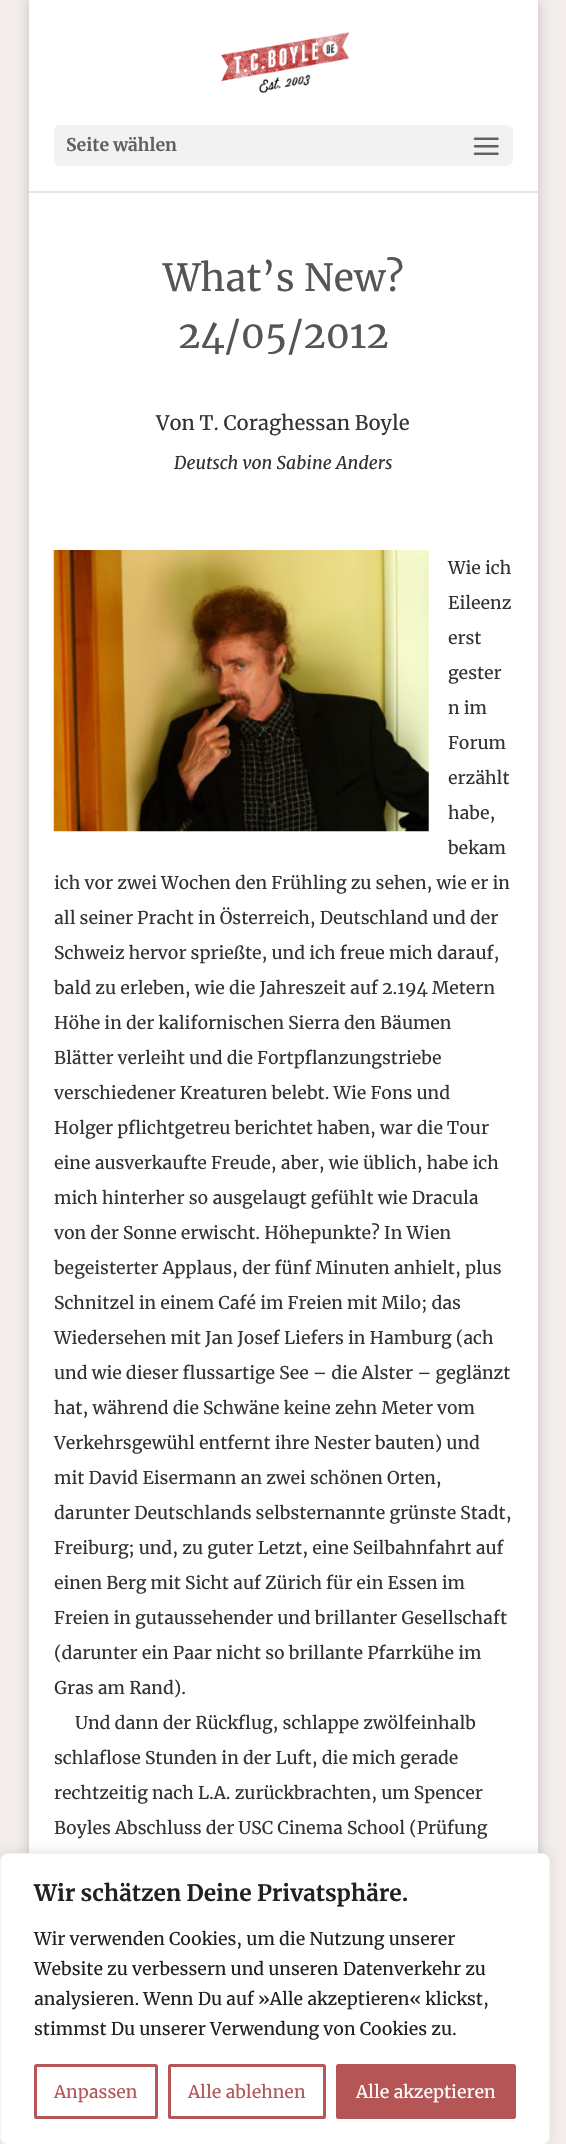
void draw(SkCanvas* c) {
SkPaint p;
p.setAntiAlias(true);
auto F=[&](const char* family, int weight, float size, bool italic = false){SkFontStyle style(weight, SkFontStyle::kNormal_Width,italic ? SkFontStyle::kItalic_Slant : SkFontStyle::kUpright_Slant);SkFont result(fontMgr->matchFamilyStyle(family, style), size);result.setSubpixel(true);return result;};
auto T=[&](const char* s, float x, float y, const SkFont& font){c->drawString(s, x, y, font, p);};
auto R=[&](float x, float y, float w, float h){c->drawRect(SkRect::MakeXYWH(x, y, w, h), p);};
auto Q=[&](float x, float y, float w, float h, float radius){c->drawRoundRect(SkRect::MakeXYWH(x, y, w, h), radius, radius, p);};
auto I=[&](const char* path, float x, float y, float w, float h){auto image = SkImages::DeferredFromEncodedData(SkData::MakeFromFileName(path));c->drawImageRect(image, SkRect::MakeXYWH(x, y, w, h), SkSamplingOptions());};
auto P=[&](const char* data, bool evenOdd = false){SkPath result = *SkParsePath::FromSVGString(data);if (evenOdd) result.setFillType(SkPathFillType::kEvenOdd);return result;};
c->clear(0xfff3eeeb);
p.setColor(0x33000000);
p.setMaskFilter(SkMaskFilter::MakeBlur(kNormal_SkBlurStyle, 6));
c->drawRect(SkRect::MakeXYWH(29,0,509,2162),p);
p.setMaskFilter(nullptr);
p.setColor(0xffe6e6e6);
c->drawPath(P("M29 191v2h509v-192v190z"),p);
p.setColor(0xffffffff);
R(29,0,509,191);
I("1.png",221,32,129,62);
p.setColor(0xfff2f2f2);
Q(54,125,459,41,6);
auto f1 = F("Merriweather",700,17.5);
p.setColor(0xff616161);
T("Seite wählen",66,151,f1);
I("2.png",473,137,26,18);
p.setColor(0xffffffff);
R(29,193,509,1660);
auto f2 = F("Merriweather",400,37.5);
p.setColor(0xff555555);
T("What’s New?",163,291,f2);
T("24/05/2012",178,348,f2);
auto f3 = F("Merriweather",400,20);
p.setColor(0xff333333);
T("Von T. Coraghessan Boyle",156,430,f3);
auto f4 = F("Merriweather",400,17.5,true);
T("Deutsch von Sabine Anders",174,469,f4);
I("3.png",53,550,376,282);
auto f5 = F("Merriweather",400,17.5);
T("Wie ich",448,574,f5);
T("Eileenz",448,609,f5);
T("erst",448,644,f5);
T("gester",448,679,f5);
T("n im",448,714,f5);
T("Forum",448,749,f5);
T("erzählt",448,784,f5);
T("habe,",448,819,f5);
T("bekam",448,854,f5);
T("ich vor zwei Wochen den Frühling zu sehen, wie er in",54,889,f5);
T("all seiner Pracht in Österreich, Deutschland und der",54,924,f5);
T("Schweiz hervor sprießte, und ich freue mich darauf,",54,959,f5);
T("bald zu erleben, wie die Jahreszeit auf 2.194 Metern",54,994,f5);
T("Höhe in der kalifornischen Sierra den Bäumen",54,1029,f5);
T("Blätter verleiht und die Fortpflanzungstriebe",54,1064,f5);
T("verschiedener Kreaturen belebt. Wie Fons und",54,1099,f5);
T("Holger pflichtgetreu berichtet haben, war die Tour",54,1134,f5);
T("eine ausverkaufte Freude, aber, wie üblich, habe ich",54,1169,f5);
T("mich hinterher so ausgelaugt gefühlt wie Dracula",54,1204,f5);
T("von der Sonne erwischt. Höhepunkte? In Wien",54,1239,f5);
T("begeisterter Applaus, der fünf Minuten anhielt, plus",54,1274,f5);
T("Schnitzel in einem Café im Freien mit Milo; das",54,1309,f5);
T("Wiedersehen mit Jan Josef Liefers in Hamburg (ach",54,1344,f5);
T("und wie dieser flussartige See – die Alster – geglänzt",54,1379,f5);
T("hat, während die Schwäne keine zehn Meter vom",54,1414,f5);
T("Verkehrsgewühl entfernt ihre Nester bauten) und",54,1449,f5);
T("mit David Eisermann an zwei schönen Orten,",54,1484,f5);
T("darunter Deutschlands selbsternannte grünste Stadt,",54,1519,f5);
T("Freiburg; und, zu guter Letzt, eine Seilbahnfahrt auf",54,1554,f5);
T("einen Berg mit Sicht auf Zürich für ein Essen im",54,1589,f5);
T("Freien in gutaussehender und brillanter Gesellschaft",54,1624,f5);
T("(darunter ein Paar nicht so brillante Pfarrkühe im",54,1659,f5);
T("Gras am Rand).",54,1694,f5);
T("Und dann der Rückflug, schlappe zwölfeinhalb",75,1729,f5);
T("schlaflose Stunden in der Luft, die mich gerade",54,1764,f5);
T("rechtzeitig nach L.A. zurückbrachten, um Spencer",54,1799,f5);
T("Boyles Abschluss der USC Cinema School (Prüfung",54,1834,f5);
p.setColor(0x4dacabab);
p.setMaskFilter(SkMaskFilter::MakeBlur(kNormal_SkBlurStyle, 6));
c->drawRoundRect(SkRect::MakeXYWH(0,1851,550,293),8,8,p);
p.setMaskFilter(nullptr);
p.setColor(0xffffffff);
c->drawRoundRect(SkRect::MakeXYWH(.5,1853.5,549,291),7.5,7.5,p);
p.setStroke(true);
p.setStrokeWidth(1);
p.setColor(0xfff4f4f4);
c->drawRoundRect(SkRect::MakeXYWH(.5,1853.5,549,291),7.5,7.5,p);
auto f6 = F("Merriweather",700,22.5);
p.setStroke(false);
p.setColor(0xff212121);
T("Wir schätzen Deine Privatsphäre.",34,1901,f6);
T("Wir verwenden Cookies, um die Nutzung unserer",34,1945,f5);
T("Website zu verbessern und unseren Datenverkehr zu",34,1975,f5);
T("analysieren. Wenn Du auf »Alle akzeptieren« klickst,",34,2005,f5);
T("stimmst Du unserer Verwendung von Cookies zu.",34,2035,f5);
p.setStroke(true);
p.setStrokeWidth(3);
p.setColor(0xffb55556);
c->drawRoundRect(SkRect::MakeXYWH(35.5,2065.5,121,52),1,1,p);
p.setStroke(false);
T("Anpassen",54,2098,f5);
p.setStroke(true);
c->drawRoundRect(SkRect::MakeXYWH(169.5,2065.5,155,52),1,1,p);
p.setStroke(false);
T("Alle ablehnen",188,2098,f5);
c->drawRoundRect(SkRect::MakeXYWH(337.5,2065.5,177,52),1,1,p);
p.setStroke(true);
c->drawRoundRect(SkRect::MakeXYWH(337.5,2065.5,177,52),1,1,p);
p.setStroke(false);
p.setColor(0xffffffff);
T("Alle akzeptieren",356,2098,f5);
}
